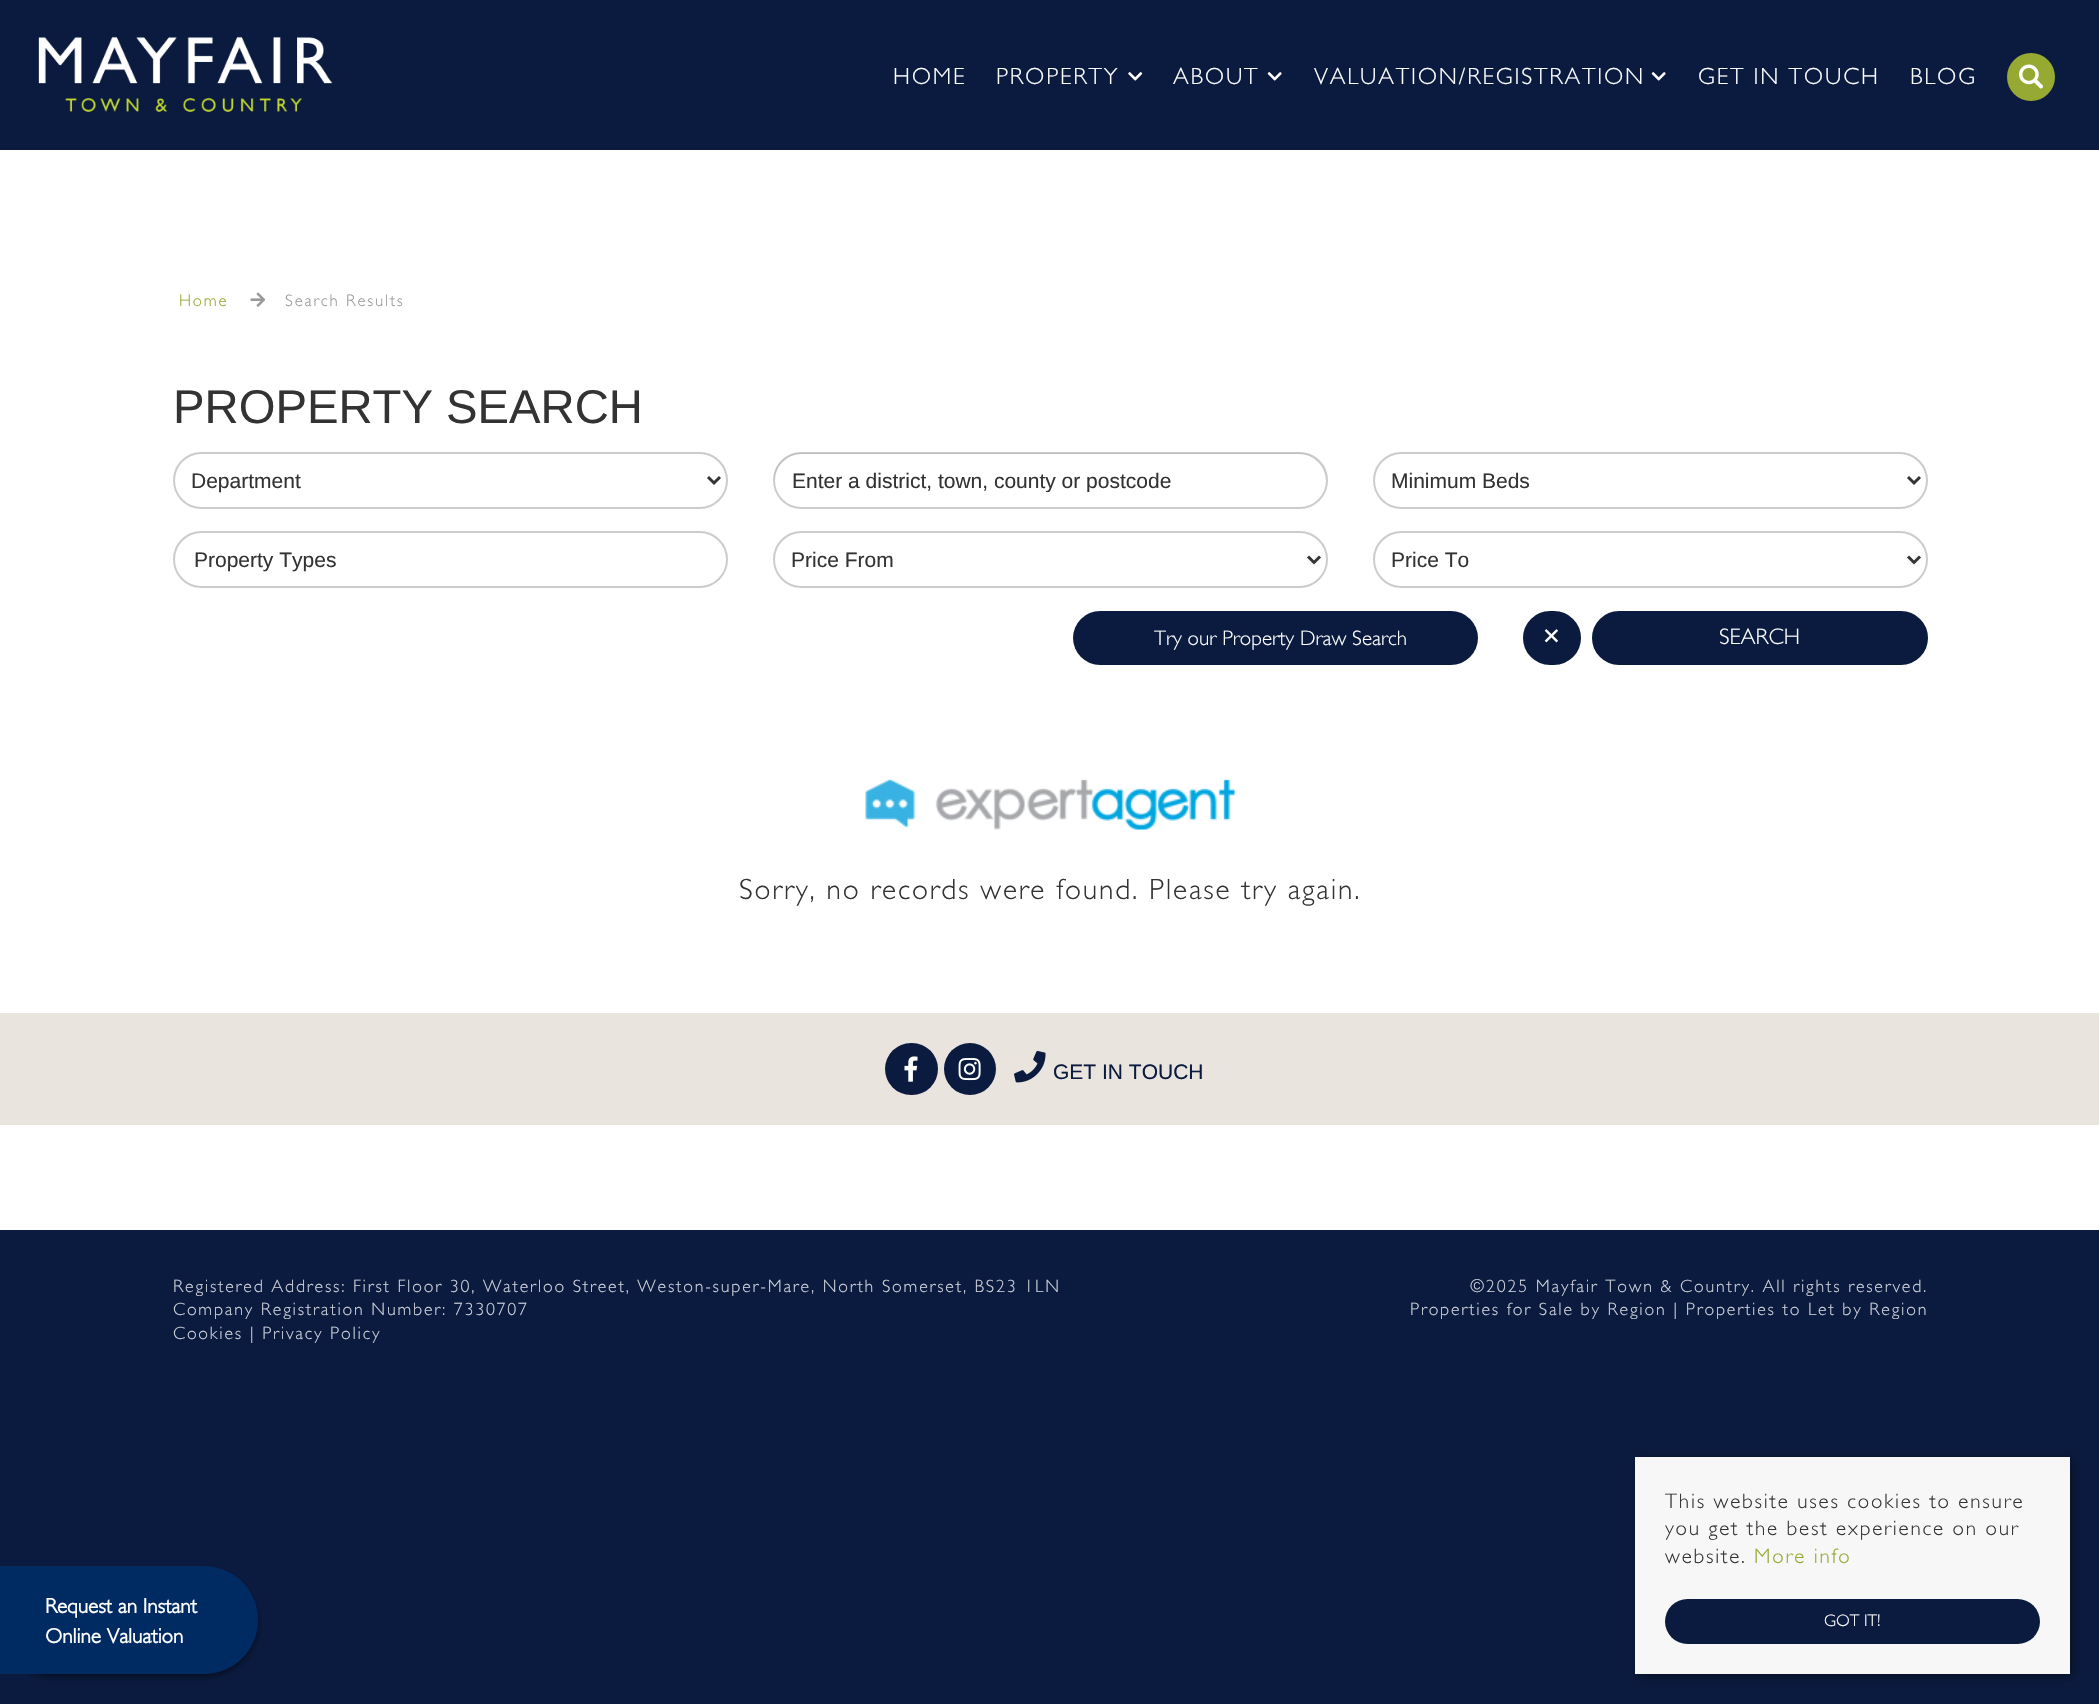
void draw(SkCanvas* c) {
SkPaint p;
p.setAntiAlias(true);
auto F=[&](const char* family, int weight, float size, bool italic = false){SkFontStyle style(weight, SkFontStyle::kNormal_Width,italic ? SkFontStyle::kItalic_Slant : SkFontStyle::kUpright_Slant);SkFont result(fontMgr->matchFamilyStyle(family, style), size);result.setSubpixel(true);return result;};
auto T=[&](const char* s, float x, float y, const SkFont& font){c->drawString(s, x, y, font, p);};
auto L=[&](const char* s, float x, float y, const SkFont& font, const SkPaint& ink, float letter, float word){std::vector<SkGlyphID> glyphs(font.countText(s, strlen(s), SkTextEncoding::kUTF8));std::vector<float> xs(glyphs.size());font.textToGlyphs(s, strlen(s), SkTextEncoding::kUTF8, glyphs);font.getXPos(glyphs, xs, x);float extra = 0;for (size_t i = 0; i < glyphs.size(); i++) {xs[i] += extra;extra += letter + word * (glyphs[i] == font.unicharToGlyph(' '));}c->drawTextBlob(SkTextBlob::MakeFromPosHGlyphs(glyphs, xs, y, font), 0, 0, ink);};
auto R=[&](float x, float y, float w, float h){c->drawRect(SkRect::MakeXYWH(x, y, w, h), p);};
auto Q=[&](float x, float y, float w, float h, float radius){c->drawRoundRect(SkRect::MakeXYWH(x, y, w, h), radius, radius, p);};
auto I=[&](const char* path, float x, float y, float w, float h){auto image = SkImages::DeferredFromEncodedData(SkData::MakeFromFileName(path));c->drawImageRect(image, SkRect::MakeXYWH(x, y, w, h), SkSamplingOptions());};
auto P=[&](const char* data, bool evenOdd = false){SkPath result = *SkParsePath::FromSVGString(data);if (evenOdd) result.setFillType(SkPathFillType::kEvenOdd);return result;};
c->clear(0xff0b1b3f);
p.setColor(0x7a000000);
p.setMaskFilter(SkMaskFilter::MakeBlur(kNormal_SkBlurStyle, 3));
c->drawRoundRect(SkRect::MakeXYWH(-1,1569,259,108),54,54,p);
p.setMaskFilter(nullptr);
p.setColor(0xff002a62);
c->drawPath(P("M-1 1566h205c30 0 54 24 54 54c0 30-24 54-54 54h-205z"),p);
auto f1 = F("Gill Sans",700,21);
p.setColor(0xffffffff);
T("Request an Instant",45,1613,f1);
T("Online Valuation",45,1643,f1);
I("1.png",38,36,295,76);
auto f2 = F("Gill Sans",300,23.5);
L("HOME",893,84,f2,p,1.8,0);
L("PROPERTY",996,84,f2,p,1.8,0);
I("2.png",1128,72,15,9);
L("ABOUT",1173,84,f2,p,1.8,0);
I("3.png",1267,72,15,9);
L("VALUATION/REGISTRATION",1314,84,f2,p,1.8,0);
I("3.png",1651,72,15,9);
L("GET IN TOUCH",1698,84,f2,p,1.8,0);
L("BLOG",1910,84,f2,p,1.8,0);
p.setColor(0xff96a932);
c->drawCircle(2031,77,24,p);
I("4.png",2019,64,24,25);
p.setColor(0xffffffff);
R(0,150,2099,863);
auto f3 = F("Gill Sans",300,16.75);
p.setColor(0xff96a932);
L("Home",179,306,f3,p,1.8,0);
I("5.png",250,292,16,15);
p.setColor(0xff999999);
L("Search Results",285,306,f3,p,1.8,0);
auto f4 = F("Liberation Sans",400,47.25);
p.setColor(0xff333333);
T("PROPERTY SEARCH",173,423,f4);
p.setStroke(true);
p.setStrokeWidth(2);
p.setColor(0xffcccccc);
c->drawRoundRect(SkRect::MakeXYWH(174,453,553,55),27.5,27.5,p);
p.setStrokeWidth(3);
p.setColor(0xff333333);
c->drawPath(P("M708 477l6 6l6-6"),p);
auto f5 = F("Liberation Sans",400,21);
p.setStroke(false);
T("Department",191,488,f5);
p.setColor(0xffececec);
c->drawPath(P("M801 454h498c15 0 26 12 27 27c1-15-12-28-27-28h-498c-15 0-28 13-27 28c1-15 12-27 27-27z"),p);
p.setStroke(true);
p.setStrokeWidth(2);
p.setColor(0x33000000);
c->drawRoundRect(SkRect::MakeXYWH(774,453,553,55),27.5,27.5,p);
c->save();
c->clipRect(SkRect::MakeXYWH(792,468,516,24));
p.setStroke(false);
p.setColor(0xff333333);
T("Enter a district, town, county or postcode",792,488,f5);
c->restore();
p.setStroke(true);
p.setColor(0xffcccccc);
c->drawRoundRect(SkRect::MakeXYWH(1374,453,553,55),27.5,27.5,p);
p.setStrokeWidth(3);
p.setColor(0xff333333);
c->drawPath(P("M1908 477l6 6l6-6"),p);
p.setStroke(false);
T("Minimum Beds",1391,488,f5);
p.setStroke(true);
p.setStrokeWidth(2);
p.setColor(0xffcccccc);
c->drawRoundRect(SkRect::MakeXYWH(174,532,553,55),27.5,27.5,p);
p.setStroke(false);
p.setColor(0xff333333);
T("Property Types",194,567,f5);
p.setStroke(true);
p.setColor(0xffcccccc);
c->drawRoundRect(SkRect::MakeXYWH(774,532,553,55),27.5,27.5,p);
p.setStrokeWidth(3);
p.setColor(0xff333333);
c->drawPath(P("M1308 556.5l6 6l6-6"),p);
p.setStroke(false);
T("Price From",791,567,f5);
p.setStroke(true);
p.setStrokeWidth(2);
p.setColor(0xffcccccc);
c->drawRoundRect(SkRect::MakeXYWH(1374,532,553,55),27.5,27.5,p);
p.setStrokeWidth(3);
p.setColor(0xff333333);
c->drawPath(P("M1908 556.5l6 6l6-6"),p);
p.setStroke(false);
T("Price To",1391,567,f5);
p.setColor(0xff0b1b3f);
Q(1073,611,405,54,27);
auto f6 = F("Gill Sans",300,21);
p.setColor(0xffffffff);
T("Try our Property Draw Search",1154,645,f6);
p.setColor(0xff0b1b3f);
c->drawRoundRect(SkRect::MakeXYWH(1524,612,56,52),26,26,p);
p.setStroke(true);
p.setStrokeWidth(2);
c->drawRoundRect(SkRect::MakeXYWH(1524,612,56,52),26,26,p);
auto f7 = F("DejaVu Sans",400,22.5);
p.setStroke(false);
p.setColor(0xffffffff);
T("✕",1542,644,f7);
p.setColor(0xff0b1b3f);
c->drawRoundRect(SkRect::MakeXYWH(1593,612,334,52),26,26,p);
p.setStroke(true);
c->drawRoundRect(SkRect::MakeXYWH(1593,612,334,52),26,26,p);
auto f8 = F("Gill Sans",300,22.5);
p.setStroke(false);
p.setColor(0xffffffff);
T("SEARCH",1719,644,f8);
I("6.png",865,779,370,51);
auto f9 = F("Gill Sans",300,29.4);
p.setColor(0xff333333);
L("Sorry, no records were found. Please try again.",739,899,f9,p,1.8,0);
p.setColor(0xffe9e5de);
R(0,1013,2099,112);
p.setColor(0xff0b1b3f);
Q(885,1043,53,52,26);
I("7.png",904,1056,14,26);
c->drawCircle(970,1069,26,p);
I("8.png",958,1058,23,23);
I("9.png",1014,1050,32,33);
T("GET IN TOUCH",1053,1079,f5);
p.setColor(0xffffffff);
R(0,1125,2099,105);
auto f10 = F("Gill Sans",300,17.85);
p.setColor(0xffced1d9);
L("Registered Address: First Floor 30, Waterloo Street, Weston-super-Mare, North Somerset, BS23 1LN",173,1292,f10,p,1.8,0);
L("Company Registration Number: 7330707",173,1315,f10,p,1.8,0);
L("Cookies | Privacy Policy",173,1339,f10,p,1.8,0);
L("©2025 Mayfair Town & Country. All rights reserved.",1470,1292,f10,p,1.8,0);
L("Properties for Sale by Region | Properties to Let by Region",1410,1315,f10,p,1.8,0);
p.setColor(0x66000000);
p.setMaskFilter(SkMaskFilter::MakeBlur(kNormal_SkBlurStyle, 5));
c->drawRect(SkRect::MakeXYWH(1638,1460,435,217),p);
p.setMaskFilter(nullptr);
p.setColor(0xfff7f7f7);
R(1635,1457,435,217);
p.setColor(0xff333333);
L("This website uses cookies to ensure",1665,1508,f6,p,1.8,0);
L("you get the best experience on our",1665,1535,f6,p,1.8,0);
L("website.",1665,1563,f6,p,1.8,0);
p.setColor(0xff96a932);
L("More info",1754,1563,f6,p,1.8,0);
p.setColor(0xff0b1b3f);
Q(1665,1599,375,45,22.5);
p.setColor(0xffffffff);
T("GOT IT!",1824,1626,f3);
}
